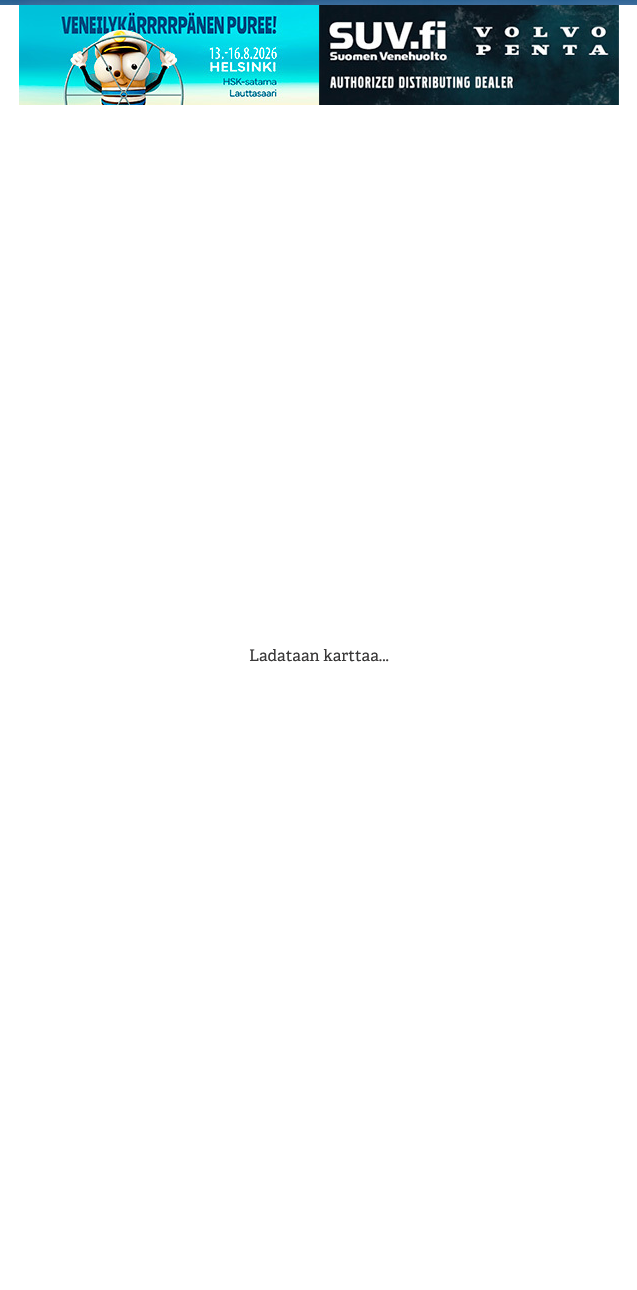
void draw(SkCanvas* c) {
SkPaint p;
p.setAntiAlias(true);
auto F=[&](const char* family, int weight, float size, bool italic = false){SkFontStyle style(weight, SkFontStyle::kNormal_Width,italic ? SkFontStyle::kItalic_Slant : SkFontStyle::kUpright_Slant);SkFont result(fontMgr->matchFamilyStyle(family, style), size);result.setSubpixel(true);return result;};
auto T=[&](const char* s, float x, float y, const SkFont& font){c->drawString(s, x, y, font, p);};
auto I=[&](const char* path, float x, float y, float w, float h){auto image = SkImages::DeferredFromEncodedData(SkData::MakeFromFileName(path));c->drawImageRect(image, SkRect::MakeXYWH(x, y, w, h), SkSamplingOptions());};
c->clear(0xffffffff);
I("1.png",0,0,637,5);
I("2.png",19,5,300,100);
I("3.png",319,5,300,100);
auto f1 = F("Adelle",400,16);
p.setColor(0xff3a3939);
T("Ladataan karttaa...",249,661,f1);
}
